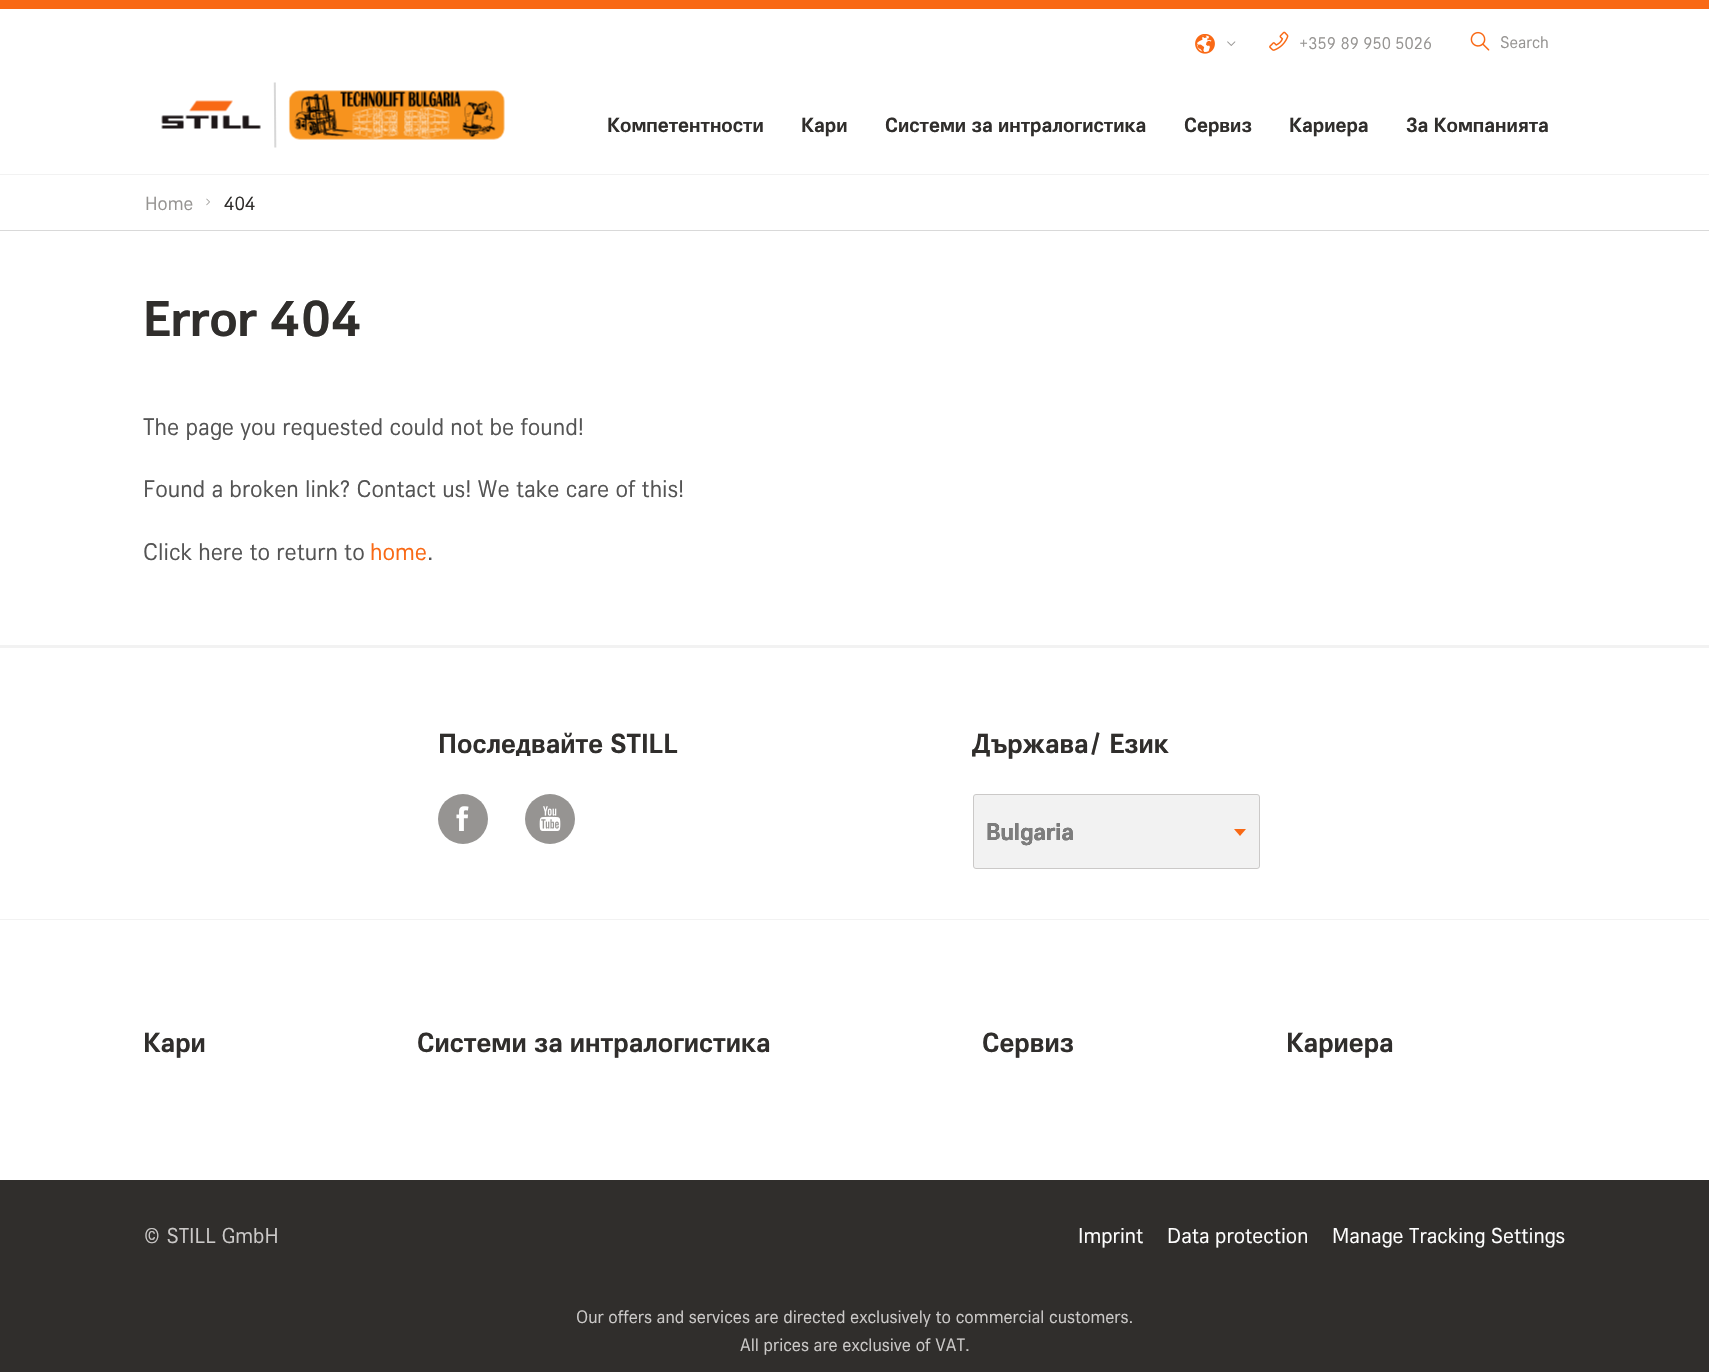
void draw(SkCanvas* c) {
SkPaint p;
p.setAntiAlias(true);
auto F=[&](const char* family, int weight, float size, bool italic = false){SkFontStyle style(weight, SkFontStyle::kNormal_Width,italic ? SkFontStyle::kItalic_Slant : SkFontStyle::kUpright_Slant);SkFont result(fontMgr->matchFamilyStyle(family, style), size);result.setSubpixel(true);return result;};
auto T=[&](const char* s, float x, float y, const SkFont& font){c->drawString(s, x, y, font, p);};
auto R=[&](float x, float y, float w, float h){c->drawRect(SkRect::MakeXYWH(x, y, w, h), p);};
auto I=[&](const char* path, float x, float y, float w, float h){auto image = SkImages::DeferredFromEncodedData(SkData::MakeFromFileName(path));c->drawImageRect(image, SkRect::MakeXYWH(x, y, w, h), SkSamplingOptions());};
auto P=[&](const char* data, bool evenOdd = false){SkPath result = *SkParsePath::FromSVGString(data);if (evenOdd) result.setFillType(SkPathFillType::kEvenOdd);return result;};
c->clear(0xffffffff);
p.setColor(0xfff96915);
R(0,0,1709,9);
p.setColor(0xfff2f2f2);
R(0,174,1709,1);
I("1.png",1195,34,20,20);
I("2.png",1227,41,9,5);
I("3.png",1269,31,20,20);
auto f1 = F("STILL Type",400,17.5);
p.setColor(0xff969492);
T("+359 89 950 5026",1299,49,f1);
I("4.png",1470,31,20,20);
T("Search",1500,48,f1);
I("5.png",161,82,344,66);
auto f2 = F("STILL Type",700,21.25);
p.setColor(0xff302e2c);
T("Компетентности",607,132,f2);
T("Кари",801,132,f2);
T("Системи за интралогистика",885,132,f2);
T("Сервиз",1184,132,f2);
T("Кариера",1289,132,f2);
T("За Компанията",1406,132,f2);
p.setColor(0xffd9d9d9);
R(0,230,1709,1);
auto f3 = F("STILL Type",400,20);
p.setColor(0xff969492);
T("Home",145,210,f3);
I("6.png",206,198,4,8);
p.setColor(0xff302e2c);
T("404",224,210,f3);
auto f4 = F("STILL Type",700,52.5);
T("Error 404",143,336,f4);
auto f5 = F("STILL Type",400,25);
p.setColor(0xff545454);
T("The page you requested could not be found!",143,435,f5);
T("Found a broken link? Contact us! We take care of this!",143,497,f5);
T("Click here to return to",143,560,f5);
p.setColor(0xfff96915);
T("home",370,560,f5);
p.setColor(0xff545454);
T(".",427,560,f5);
p.setColor(0xfff2f2f2);
R(0,645,1709,3);
auto f6 = F("STILL Type",700,28.75);
p.setColor(0xff302e2c);
T("Последвайте STILL",438,753,f6);
p.setColor(0xff969492);
c->drawCircle(463,819,25,p);
I("7.png",456,806,13,25);
c->drawCircle(550,819,25,p);
I("8.png",539,806,22,25);
p.setColor(0xff302e2c);
T("Държава/ Език",972,753,f6);
p.setColor(0xfff2f2f2);
c->drawRoundRect(SkRect::MakeXYWH(973.5,794.5,286,74),2.5,2.5,p);
p.setStroke(true);
p.setStrokeWidth(1);
p.setColor(0xffcbc9c8);
c->drawRoundRect(SkRect::MakeXYWH(973.5,794.5,286,74),2.5,2.5,p);
auto f7 = F("STILL Type",700,25);
p.setStroke(false);
p.setColor(0xff545454);
T("Bulgaria",986,840,f7);
p.setColor(0xfff96915);
c->drawPath(P("M1234 829h12l-6 7z"),p);
p.setColor(0xff7d7d7d);
T("Bulgaria",986,840,f7);
p.setColor(0xfff2f2f2);
R(0,919,1709,1);
p.setColor(0xff302e2c);
T("Кари",143,1052,f6);
T("Системи за интралогистика",417,1052,f6);
T("Сервиз",982,1052,f6);
T("Кариера",1286,1052,f6);
R(0,1180,1709,192);
auto f8 = F("STILL Type",400,22.5);
p.setColor(0xffcbc9c8);
T("© STILL GmbH",143,1243,f8);
p.setColor(0xffffffff);
T("Imprint",1078,1243,f8);
T("Data protection",1167,1243,f8);
T("Manage Tracking Settings",1332,1243,f8);
auto f9 = F("STILL Type",400,18.75);
p.setColor(0xffcbc9c8);
T("Our offers and services are directed exclusively to commercial customers.",576,1323,f9);
T("All prices are exclusive of VAT.",740,1351,f9);
}
